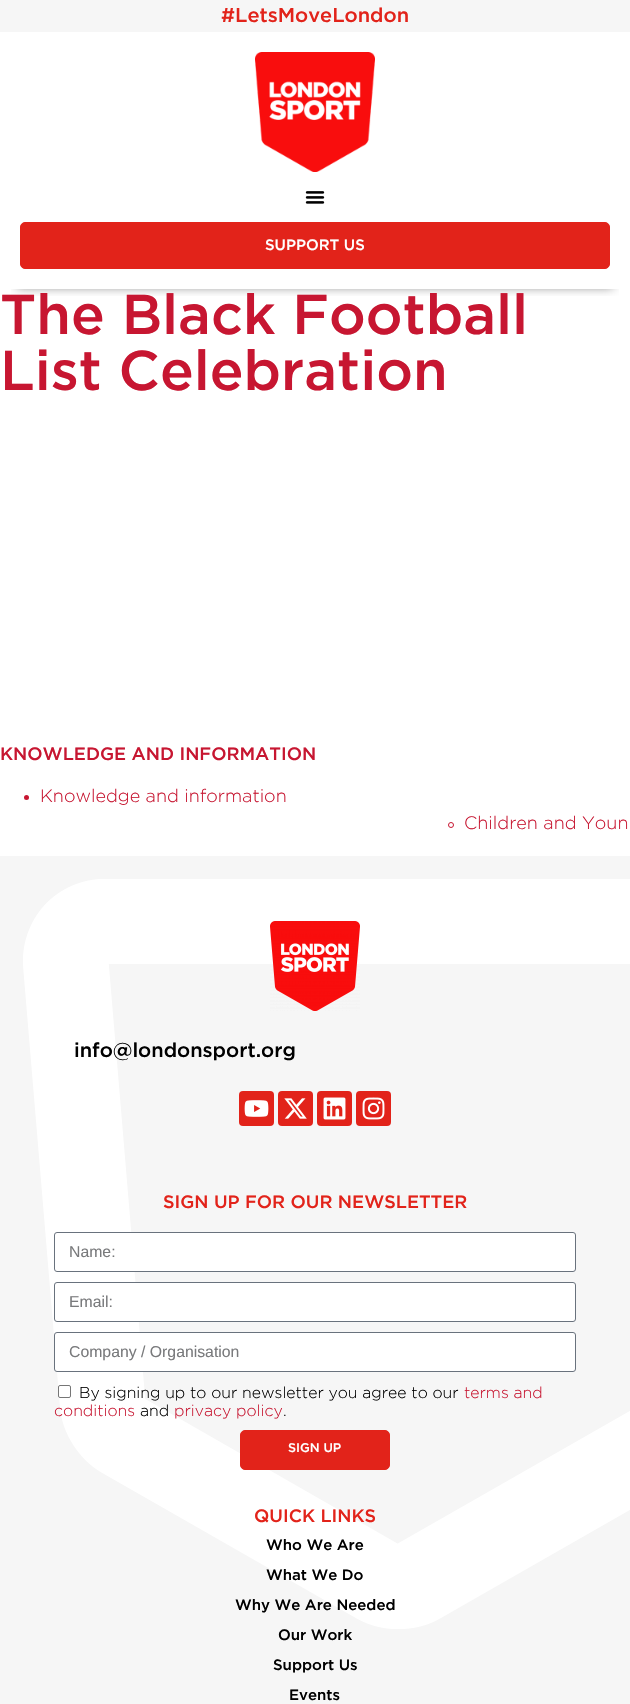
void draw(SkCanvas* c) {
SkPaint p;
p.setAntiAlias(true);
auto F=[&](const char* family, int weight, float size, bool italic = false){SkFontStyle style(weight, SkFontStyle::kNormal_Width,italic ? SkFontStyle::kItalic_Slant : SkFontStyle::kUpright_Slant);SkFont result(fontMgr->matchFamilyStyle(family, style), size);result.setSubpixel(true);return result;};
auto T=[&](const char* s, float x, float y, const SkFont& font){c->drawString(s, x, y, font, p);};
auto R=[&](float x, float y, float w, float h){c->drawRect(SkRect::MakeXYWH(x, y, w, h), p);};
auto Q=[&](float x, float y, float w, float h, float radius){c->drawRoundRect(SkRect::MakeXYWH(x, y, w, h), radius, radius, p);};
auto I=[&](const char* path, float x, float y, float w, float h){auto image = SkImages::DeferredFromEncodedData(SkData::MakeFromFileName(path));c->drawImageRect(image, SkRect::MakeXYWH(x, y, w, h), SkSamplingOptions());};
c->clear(0xffffffff);
p.setColor(0xfff6f6f6);
R(0,0,630,32);
auto f1 = F("Gotham",500,20);
p.setColor(0xffe2231a);
T("#LetsMoveLondon",221,22,f1);
c->save();
c->clipRect(SkRect::MakeXYWH(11,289,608,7));
p.setColor(0x80000000);
p.setMaskFilter(SkMaskFilter::MakeBlur(kNormal_SkBlurStyle, 5));
c->drawRect(SkRect::MakeXYWH(17,64,596,223),p);
p.setMaskFilter(nullptr);
c->restore();
I("1.png",255,52,120,120);
I("2.png",305,191,20,13);
p.setColor(0xffe2231a);
c->drawRoundRect(SkRect::MakeXYWH(20.5,222.5,589,46),4.5,4.5,p);
p.setStroke(true);
p.setStrokeWidth(1);
c->drawRoundRect(SkRect::MakeXYWH(20.5,222.5,589,46),4.5,4.5,p);
auto f2 = F("Gotham",500,15);
p.setStroke(false);
p.setColor(0xffffffff);
T("SUPPORT US",265,250,f2);
auto f3 = F("Gotham",500,56);
p.setColor(0xffc71631);
T("The Black Football",0,334,f3);
T("List Celebration",0,390,f3);
auto f4 = F("Gotham",500,18);
T("KNOWLEDGE AND INFORMATION",0,760,f4);
c->drawCircle(26.5,797.5,2.5,p);
auto f5 = F("Gotham",300,18);
T("Knowledge and information",40,802,f5);
p.setStroke(true);
c->drawCircle(451,825,2.5,p);
p.setStroke(false);
T("Children and Youn",464,829,f5);
p.setColor(0xfff6f6f6);
R(0,856,630,848);
I("3.png",23,879,607,750);
I("4.png",270,921,90,90);
p.setColor(0xff000000);
T("info@londonsport.org",74,1057,f1);
p.setColor(0xffe2231a);
Q(239,1091,35,35,4);
I("5.png",244,1100,25,17);
Q(278,1091,35,35,4);
I("6.png",284,1098,23,21);
Q(317,1091,35,35,4);
I("7.png",323,1097,23,23);
Q(356,1091,35,35,4);
I("8.png",362,1097,23,23);
T("SIGN UP FOR OUR NEWSLETTER",163,1208,f4);
p.setColor(0xffffffff);
c->drawRoundRect(SkRect::MakeXYWH(54.5,1232.5,521,39),2.5,2.5,p);
p.setStroke(true);
p.setColor(0xff69727d);
c->drawRoundRect(SkRect::MakeXYWH(54.5,1232.5,521,39),2.5,2.5,p);
auto f6 = F("Liberation Sans",400,15.8);
p.setStroke(false);
p.setColor(0xff797a7c);
T("Name:",69,1257,f6);
p.setColor(0xffffffff);
c->drawRoundRect(SkRect::MakeXYWH(54.5,1282.5,521,39),2.5,2.5,p);
p.setStroke(true);
p.setColor(0xff69727d);
c->drawRoundRect(SkRect::MakeXYWH(54.5,1282.5,521,39),2.5,2.5,p);
p.setStroke(false);
p.setColor(0xff797a7c);
T("Email:",69,1307,f6);
p.setColor(0xffffffff);
c->drawRoundRect(SkRect::MakeXYWH(54.5,1332.5,521,39),2.5,2.5,p);
p.setStroke(true);
p.setColor(0xff69727d);
c->drawRoundRect(SkRect::MakeXYWH(54.5,1332.5,521,39),2.5,2.5,p);
p.setStroke(false);
p.setColor(0xff797a7c);
T("Company / Organisation",69,1357,f6);
p.setColor(0xffffffff);
c->drawRoundRect(SkRect::MakeXYWH(58.5,1385.5,12,12),1.5,1.5,p);
p.setStroke(true);
p.setColor(0xff767676);
c->drawRoundRect(SkRect::MakeXYWH(58.5,1385.5,12,12),1.5,1.5,p);
auto f7 = F("Gotham",300,15.8);
p.setStroke(false);
p.setColor(0xff000000);
T("By signing up to our newsletter you agree to our",79,1398,f7);
p.setColor(0xffc71631);
T("terms and",464,1398,f7);
T("conditions",54,1416,f7);
p.setColor(0xff000000);
T("and",140,1416,f7);
p.setColor(0xffc71631);
T("privacy policy",174,1416,f7);
p.setColor(0xff000000);
T(".",283,1416,f7);
p.setColor(0xffe2231a);
c->drawRoundRect(SkRect::MakeXYWH(240.5,1430.5,149,39),4.5,4.5,p);
p.setStroke(true);
c->drawRoundRect(SkRect::MakeXYWH(240.5,1430.5,149,39),4.5,4.5,p);
auto f8 = F("Gotham",500,12.5);
p.setStroke(false);
p.setColor(0xffffffff);
T("SIGN UP",288,1452,f8);
p.setColor(0xffe2231a);
T("QUICK LINKS",254,1522,f4);
p.setColor(0xff000000);
T("Who We Are",266,1550,f2);
T("What We Do",266,1580,f2);
T("Why We Are Needed",235,1610,f2);
T("Our Work",278,1640,f2);
T("Support Us",273,1670,f2);
T("Events",289,1700,f2);
}
